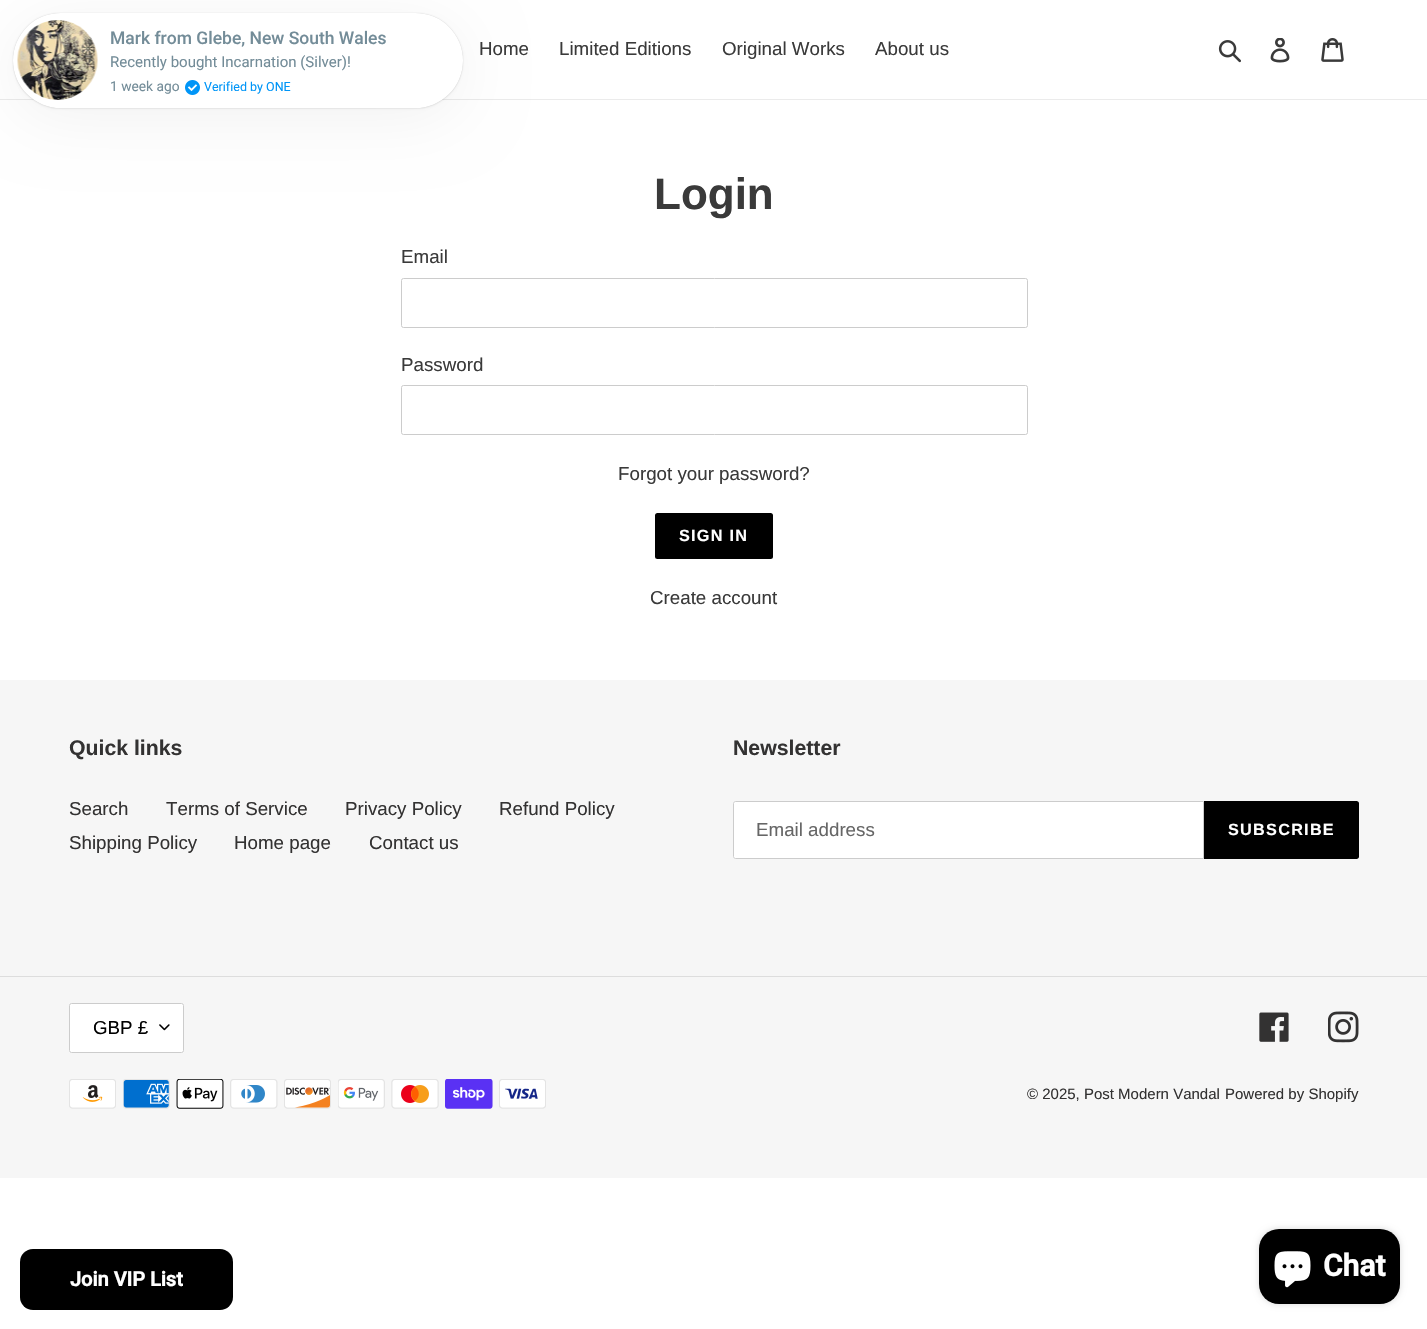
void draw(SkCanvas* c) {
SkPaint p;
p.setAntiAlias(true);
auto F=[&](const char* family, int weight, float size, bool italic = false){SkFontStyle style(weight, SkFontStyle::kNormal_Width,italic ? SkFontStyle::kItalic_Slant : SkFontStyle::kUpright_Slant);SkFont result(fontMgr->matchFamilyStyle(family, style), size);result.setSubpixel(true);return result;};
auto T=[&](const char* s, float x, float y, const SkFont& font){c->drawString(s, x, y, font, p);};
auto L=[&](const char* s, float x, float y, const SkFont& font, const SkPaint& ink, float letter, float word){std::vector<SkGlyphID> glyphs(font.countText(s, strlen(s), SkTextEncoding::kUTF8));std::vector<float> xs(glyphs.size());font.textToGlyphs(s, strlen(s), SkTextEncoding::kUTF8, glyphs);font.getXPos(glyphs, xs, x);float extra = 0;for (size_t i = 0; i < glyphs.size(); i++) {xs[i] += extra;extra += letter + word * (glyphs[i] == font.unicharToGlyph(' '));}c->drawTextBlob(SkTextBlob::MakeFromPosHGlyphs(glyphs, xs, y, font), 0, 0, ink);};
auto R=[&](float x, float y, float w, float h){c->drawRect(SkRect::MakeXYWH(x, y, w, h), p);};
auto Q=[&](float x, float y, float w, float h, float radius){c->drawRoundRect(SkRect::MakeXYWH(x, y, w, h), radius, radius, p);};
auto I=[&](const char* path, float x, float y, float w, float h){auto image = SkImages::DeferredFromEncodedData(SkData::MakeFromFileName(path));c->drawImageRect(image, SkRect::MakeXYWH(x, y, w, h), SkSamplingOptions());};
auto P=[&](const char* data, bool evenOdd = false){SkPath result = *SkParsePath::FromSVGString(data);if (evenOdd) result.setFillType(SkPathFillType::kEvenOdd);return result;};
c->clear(0xffffffff);
p.setColor(0xffebebeb);
R(0,99,1427,1);
p.setColor(0x0d000000);
p.setMaskFilter(SkMaskFilter::MakeBlur(kNormal_SkBlurStyle, 31));
c->drawRoundRect(SkRect::MakeXYWH(13,23,450,95),47.5,47.5,p);
p.setMaskFilter(nullptr);
p.setMaskFilter(SkMaskFilter::MakeBlur(kNormal_SkBlurStyle, 1));
c->drawRoundRect(SkRect::MakeXYWH(13,14,450,95),47.5,47.5,p);
p.setMaskFilter(nullptr);
p.setColor(0x33000000);
p.setMaskFilter(SkMaskFilter::MakeBlur(kNormal_SkBlurStyle, .5));
c->drawRoundRect(SkRect::MakeXYWH(13,13,450,95),47.5,47.5,p);
p.setMaskFilter(nullptr);
p.setColor(0xffffffff);
Q(13,13,450,95,47.5);
I("1.png",17,20,81,80);
auto f1 = F("Roboto",500,17.5);
p.setColor(0xff738c98);
T("Mark from Glebe, New South Wales",110,44,f1);
auto f2 = F("Roboto",400,15);
T("Recently bought Incarnation (Silver)!",110,67,f2);
auto f3 = F("Roboto",400,13.75);
T("1 week ago",110,91,f3);
I("2.png",185,80,15,15);
auto f4 = F("Roboto",400,12.5);
p.setColor(0xff0095f7);
T("Verified by ONE",204,91,f4);
p.setColor(0xff000000);
Q(20,1249,213,61,13);
auto f5 = F("Roboto",700,20);
p.setColor(0xffffffff);
T("Join VIP List",70,1286,f5);
auto f6 = F("Liberation Sans",400,18.75);
p.setColor(0xff3a3a3a);
T("Home",479,55,f6);
T("Limited Editions",559,55,f6);
T("Original Works",722,55,f6);
T("About us",875,55,f6);
I("3.png",1218,40,23,23);
I("4.png",1270,38,20,25);
I("5.png",1321,38,23,24);
auto f7 = F("Liberation Sans",700,44);
T("Login",654,209,f7);
T("Email",401,263,f6);
p.setStroke(true);
p.setStrokeWidth(1);
p.setColor(0xffcccccc);
c->drawRoundRect(SkRect::MakeXYWH(401.5,278.5,626,49),2,2,p);
p.setStroke(false);
p.setColor(0xff3a3a3a);
T("Password",401,371,f6);
p.setStroke(true);
p.setColor(0xffcccccc);
c->drawRoundRect(SkRect::MakeXYWH(401.5,385.5,626,49),2,2,p);
p.setStroke(false);
p.setColor(0xff3a3a3a);
T("Forgot your password?",618,480,f6);
p.setColor(0xff000000);
Q(655,513,118,46,2.5);
auto f8 = F("Liberation Sans",700,16.25);
p.setColor(0xffffffff);
L("SIGN IN",679,541,f8,p,1.25,0);
p.setColor(0xff3a3a3a);
T("Create account",650,604,f6);
p.setColor(0xfff6f6f6);
R(0,680,1427,498);
auto f9 = F("Liberation Sans",700,21.25);
p.setColor(0xff333232);
T("Quick links",69,755,f9);
T("Search",69,815,f6);
T("Terms of Service",166,815,f6);
T("Privacy Policy",345,815,f6);
T("Refund Policy",499,815,f6);
T("Shipping Policy",69,849,f6);
T("Home page",234,849,f6);
T("Contact us",369,849,f6);
T("Newsletter",733,755,f9);
p.setColor(0xffffffff);
c->drawPath(P("M735.5 801.5h468v57h-468c-1 0-2-1-2-2v-53c0-1 1-2 2-2z"),p);
p.setStroke(true);
p.setColor(0xffcccccc);
c->drawPath(P("M735.5 801.5h468v57h-468c-1 0-2-1-2-2v-53c0-1 1-2 2-2z"),p);
p.setStroke(false);
p.setColor(0xff666666);
T("Email address",756,836,f6);
p.setColor(0xff000000);
c->drawPath(P("M1204 801h152.5c1.5 0 2.5 1 2.5 2.5v53c0 1.5-1 2.5-2.5 2.5h-152.5z"),p);
p.setColor(0xffffffff);
L("SUBSCRIBE",1228,835,f8,p,1.25,0);
p.setColor(0xffdddddd);
R(0,976,1427,1);
p.setColor(0xffffffff);
Q(69,1003,115,50,2.5);
I("6.png",159,1024,11,7);
p.setStroke(true);
p.setColor(0xffcccccc);
c->drawRoundRect(SkRect::MakeXYWH(69.5,1003.5,114,49),2,2,p);
p.setStroke(false);
p.setColor(0xff000000);
T("GBP £",93,1034,f6);
I("7.png",1259,1012,30,30);
I("8.png",1328,1011,31,32);
I("9.png",69,1079,47,30);
I("10.png",123,1079,47,30);
I("11.png",176,1079,48,30);
I("12.png",230,1079,48,30);
I("13.png",284,1079,47,30);
I("14.png",338,1079,47,30);
I("15.png",391,1079,48,30);
I("16.png",445,1079,48,30);
I("17.png",499,1079,47,30);
auto f10 = F("Liberation Sans",400,15);
p.setColor(0xff333232);
T("© 2025, Post Modern Vandal",1027,1099,f10);
T("Powered by Shopify",1225,1099,f10);
p.setColor(0x26000000);
p.setMaskFilter(SkMaskFilter::MakeBlur(kNormal_SkBlurStyle, 3));
c->drawRoundRect(SkRect::MakeXYWH(1259,1229,141,75),20,20,p);
p.setMaskFilter(nullptr);
p.setColor(0xff000000);
Q(1259,1229,141,75,20);
I("18.png",1274,1251,37,37);
auto f11 = F("Roboto",700,30);
p.setColor(0xffffffff);
T("Chat",1323,1276,f11);
}
